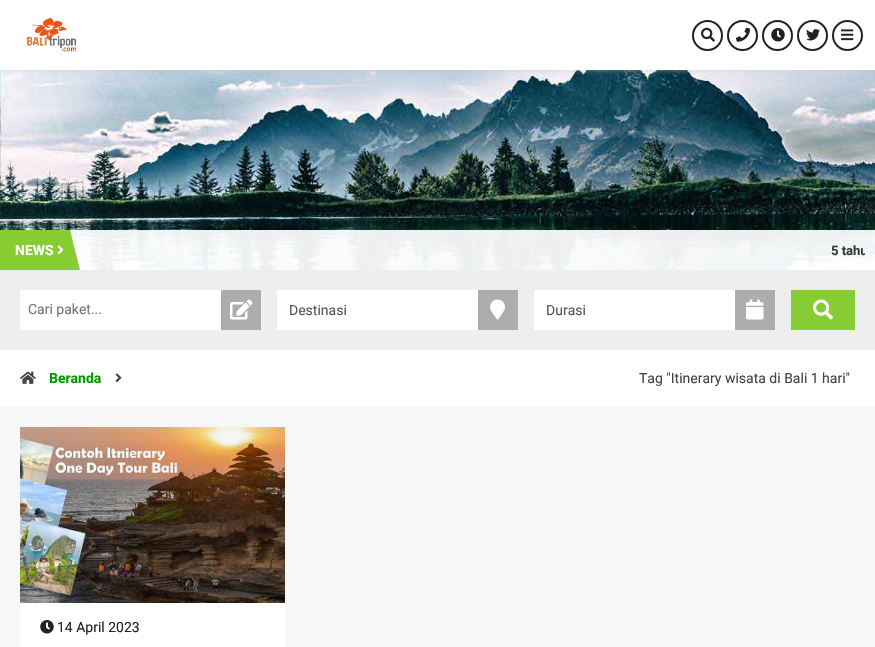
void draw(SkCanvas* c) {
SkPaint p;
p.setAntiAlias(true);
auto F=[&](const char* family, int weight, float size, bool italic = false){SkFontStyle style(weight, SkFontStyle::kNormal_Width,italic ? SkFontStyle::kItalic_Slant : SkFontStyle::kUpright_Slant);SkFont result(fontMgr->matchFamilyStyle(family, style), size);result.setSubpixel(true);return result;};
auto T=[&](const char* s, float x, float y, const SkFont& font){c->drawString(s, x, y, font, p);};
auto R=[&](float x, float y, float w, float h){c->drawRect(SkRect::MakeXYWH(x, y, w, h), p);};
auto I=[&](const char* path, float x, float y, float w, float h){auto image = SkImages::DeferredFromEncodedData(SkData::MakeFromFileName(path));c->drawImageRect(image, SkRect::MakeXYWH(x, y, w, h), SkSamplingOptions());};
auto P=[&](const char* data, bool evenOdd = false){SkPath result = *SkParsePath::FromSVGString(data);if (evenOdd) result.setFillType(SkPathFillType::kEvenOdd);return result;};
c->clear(0xffffffff);
I("7.png",0,70,875,200);
p.setColor(0x99c8c8c8);
p.setMaskFilter(SkMaskFilter::MakeBlur(kNormal_SkBlurStyle, 2.5));
c->drawRect(SkRect::MakeXYWH(0,0,875,70),p);
p.setMaskFilter(nullptr);
p.setColor(0xffffffff);
R(0,0,875,70);
I("1.png",26,17,51,35);
p.setStroke(true);
p.setStrokeWidth(2);
p.setColor(0xff222222);
c->drawCircle(707.5,35.5,14.5,p);
I("2.png",701,27,14,15);
c->drawCircle(742.5,35.5,14.5,p);
I("3.png",736,27,14,15);
c->drawCircle(777.5,35.5,14.5,p);
I("4.png",771,28,14,14);
c->drawCircle(812.5,35.5,14.5,p);
I("5.png",806,29,14,12);
c->drawCircle(847.5,35.5,14.5,p);
I("6.png",841,29,13,12);
p.setStroke(false);
p.setColor(0xffeeeeee);
R(0,270,875,80);
p.setColor(0xedffffff);
R(70,230,805,40);
p.setColor(0xff88cc33);
R(0,230,70,40);
auto f1 = F("Roboto",700,14);
p.setColor(0xffffffff);
T("NEWS",15,255,f1);
I("8.png",57,245,7,10);
p.setColor(0xff88cc33);
c->drawPath(P("M80 270h-10v-40z"),p);
c->save();
c->clipRect(SkRect::MakeXYWH(831,236,34,30));
auto f2 = F("Roboto",700,13);
p.setColor(0xff383838);
T("5 tahu",831,255,f2);
c->restore();
p.setColor(0xffffffff);
R(20,290,201,40);
auto f3 = F("Roboto",400,14);
p.setColor(0xff757575);
T("Cari paket...",28,314,f3);
p.setColor(0xffadadad);
R(221,290,40,40);
I("9.png",230,299,23,21);
p.setColor(0xffffffff);
R(277,290,201,40);
p.setColor(0xff555555);
T("Destinasi",289,315,f3);
p.setColor(0xffadadad);
R(478,290,40,40);
I("10.png",490,299,15,21);
p.setColor(0xffffffff);
R(534,290,201,40);
p.setColor(0xff555555);
T("Durasi",546,315,f3);
p.setColor(0xffadadad);
R(735,290,40,40);
I("11.png",746,299,18,21);
p.setColor(0xff88cc33);
R(791,290,64,40);
I("12.png",813,299,20,21);
I("13.png",20,371,16,13);
p.setColor(0xff009900);
T("Beranda",49,383,f1);
I("14.png",115,373,7,10);
p.setColor(0xff444444);
T("Tag \"Itinerary wisata di Bali 1 hari\"",639,383,f3);
p.setColor(0xfff7f7f7);
R(0,407,875,240);
I("15.png",20,427,265,176);
p.setColor(0xffffffff);
R(20,603,265,44);
I("4.png",40,620,14,14);
p.setColor(0xff222222);
T("14 April 2023",57,632,f3);
}
